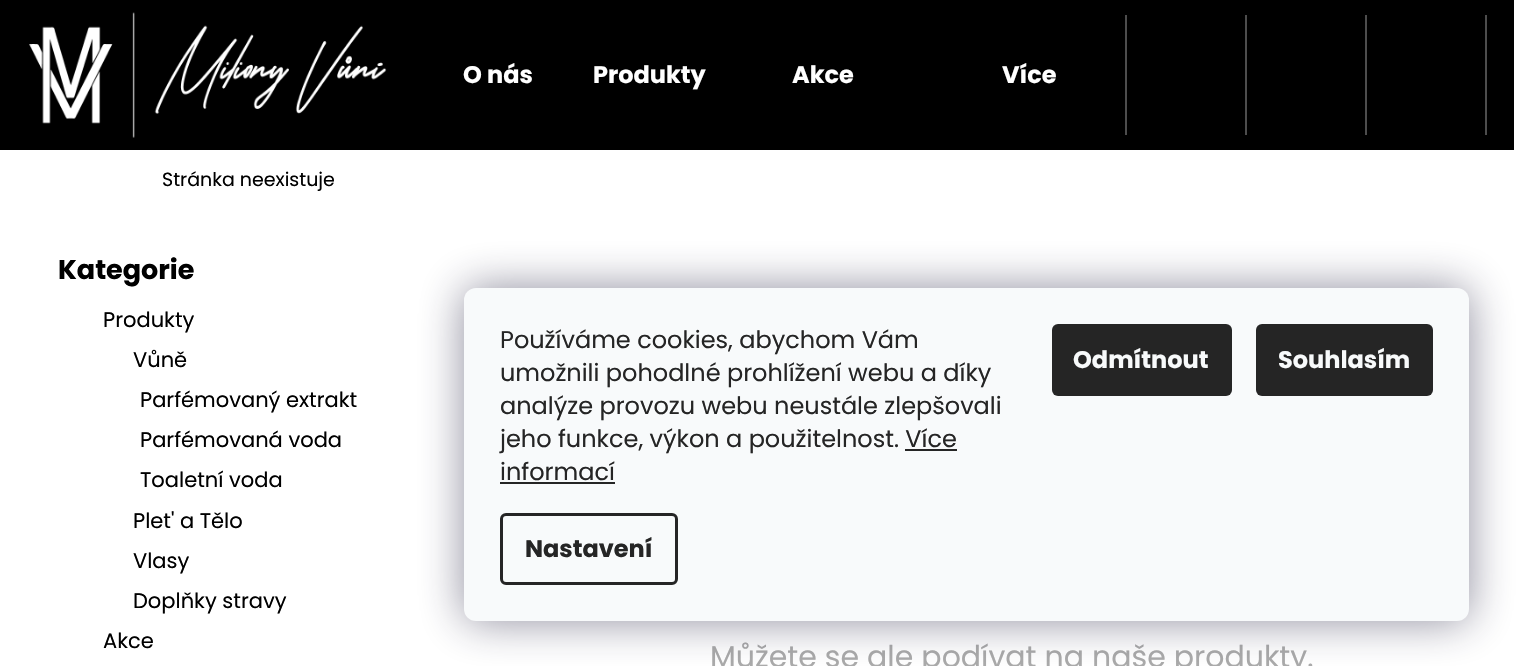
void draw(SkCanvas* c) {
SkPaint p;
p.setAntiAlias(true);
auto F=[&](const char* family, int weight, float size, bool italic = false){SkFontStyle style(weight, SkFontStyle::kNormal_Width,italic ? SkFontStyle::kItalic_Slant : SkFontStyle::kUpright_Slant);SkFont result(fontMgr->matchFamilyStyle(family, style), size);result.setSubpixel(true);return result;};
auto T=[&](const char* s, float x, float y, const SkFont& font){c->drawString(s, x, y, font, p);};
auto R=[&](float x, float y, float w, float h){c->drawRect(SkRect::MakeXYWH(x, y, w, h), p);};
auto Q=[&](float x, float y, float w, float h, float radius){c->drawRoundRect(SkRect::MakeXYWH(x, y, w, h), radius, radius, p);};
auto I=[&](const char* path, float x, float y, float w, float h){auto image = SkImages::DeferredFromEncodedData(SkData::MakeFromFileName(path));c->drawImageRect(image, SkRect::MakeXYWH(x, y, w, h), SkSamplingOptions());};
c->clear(0xffffffff);
p.setColor(0xff000000);
R(0,0,1514,150);
I("1.png",29,12,358,126);
auto f1 = F("Poppins",700,24);
p.setColor(0xffffffff);
T("O nás",463,83,f1);
T("Produkty",593,83,f1);
T("Akce",792,83,f1);
T("Více",1002,83,f1);
p.setColor(0xff4d4d4d);
R(1485,15,2,120);
R(1125,15,2,120);
R(1245,15,2,120);
R(1365,15,2,120);
auto f2 = F("Poppins",400,19);
p.setColor(0xff000000);
T("Stránka neexistuje",162,186,f2);
auto f3 = F("Poppins",700,27);
T("Kategorie",58,279,f3);
auto f4 = F("Poppins",400,21);
T("Produkty",103,327,f4);
T("Vůně",133,367,f4);
T("Parfémovaný extrakt",140,407,f4);
T("Parfémovaná voda",140,447,f4);
T("Toaletní voda",140,487,f4);
T("Plet' a Tělo",133,528,f4);
T("Vlasy",133,568,f4);
T("Doplňky stravy",133,608,f4);
T("Akce",103,648,f4);
auto f5 = F("Poppins",400,30);
p.setColor(0xffaaaaaa);
T("Můžete se ale podívat na naše produkty.",710,667,f5);
p.setColor(0x801b1939);
p.setMaskFilter(SkMaskFilter::MakeBlur(kNormal_SkBlurStyle, 22.5));
c->drawRoundRect(SkRect::MakeXYWH(464,288,1005,333),12,12,p);
p.setMaskFilter(nullptr);
p.setColor(0xfff8fafb);
Q(464,288,1005,333,12);
auto f6 = F("Poppins",400,24);
p.setColor(0xff252525);
T("Používáme cookies, abychom Vám",500,348,f6);
T("umožnili pohodlné prohlížení webu a díky",500,381,f6);
T("analýze provozu webu neustále zlepšovali",500,414,f6);
T("jeho funkce, výkon a použitelnost. Více",500,447,f6);
T("informací",500,480,f6);
R(905,449,52,2);
R(500,482,115,2);
p.setStroke(true);
p.setStrokeWidth(3);
c->drawRoundRect(SkRect::MakeXYWH(501.5,514.5,175,69),4.5,4.5,p);
p.setStroke(false);
T("Nastavení",525,557,f1);
Q(1052,324,180,72,6);
p.setColor(0xfff8fafb);
T("Odmítnout",1073,368,f1);
p.setColor(0xff252525);
Q(1256,324,177,72,6);
p.setColor(0xfff8fafb);
T("Souhlasím",1278,368,f1);
}
